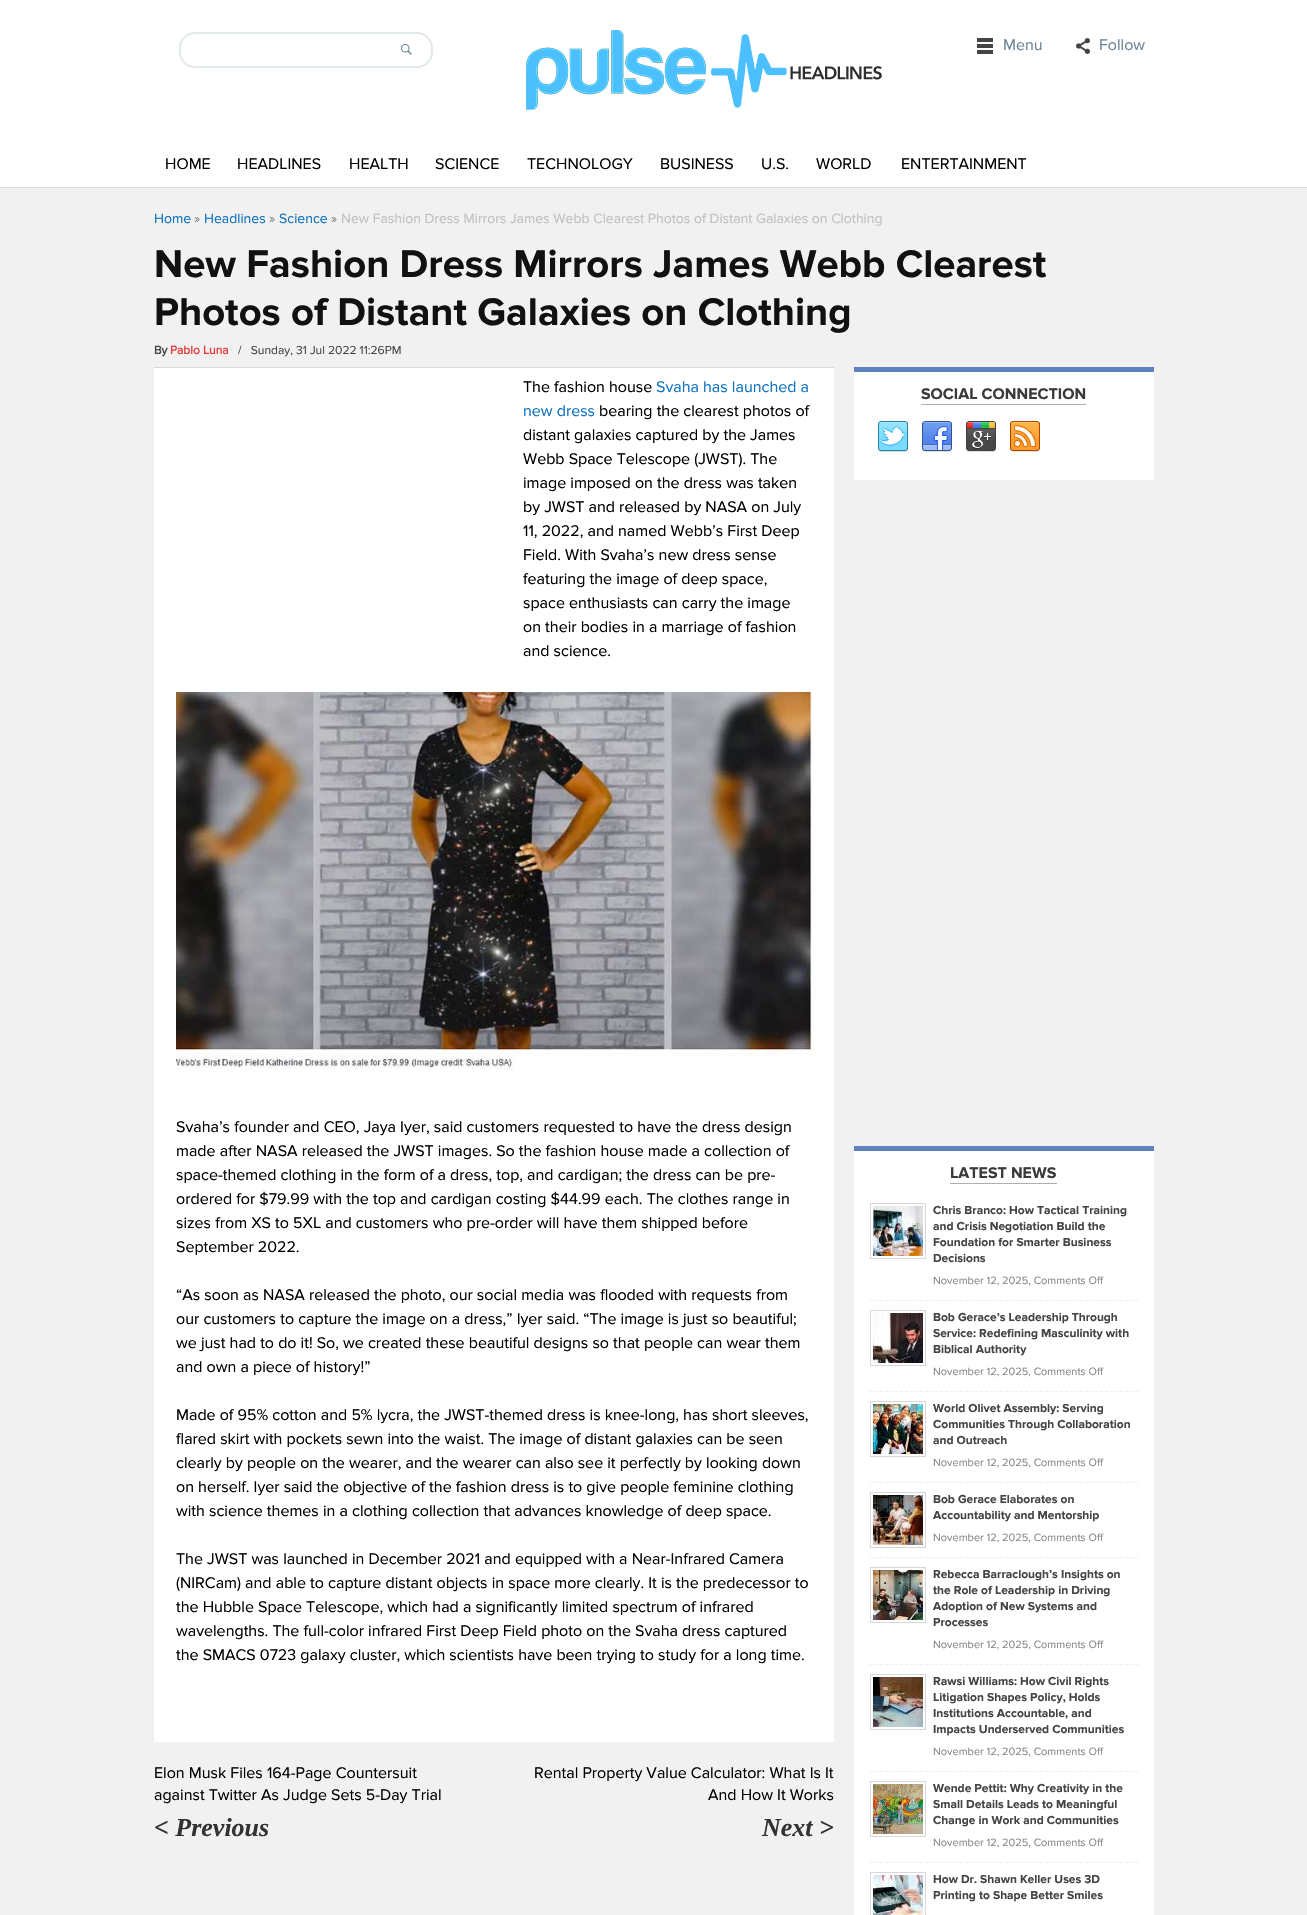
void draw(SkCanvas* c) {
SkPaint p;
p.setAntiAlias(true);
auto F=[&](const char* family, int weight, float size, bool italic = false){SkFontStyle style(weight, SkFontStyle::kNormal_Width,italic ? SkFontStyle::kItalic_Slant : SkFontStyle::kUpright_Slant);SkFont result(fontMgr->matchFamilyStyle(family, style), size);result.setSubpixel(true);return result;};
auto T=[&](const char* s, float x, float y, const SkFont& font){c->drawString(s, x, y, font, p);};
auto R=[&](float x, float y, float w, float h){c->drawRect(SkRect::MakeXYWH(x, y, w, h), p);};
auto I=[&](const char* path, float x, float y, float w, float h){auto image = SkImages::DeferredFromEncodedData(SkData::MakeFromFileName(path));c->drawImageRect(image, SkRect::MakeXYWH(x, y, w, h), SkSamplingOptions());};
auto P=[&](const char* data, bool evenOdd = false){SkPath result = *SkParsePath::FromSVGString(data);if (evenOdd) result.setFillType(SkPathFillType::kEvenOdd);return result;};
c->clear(0xfff1f1f1);
p.setColor(0xffffffff);
R(0,0,1307,187);
p.setColor(0xffd9d9d9);
R(0,187,1307,1);
p.setStroke(true);
p.setStrokeWidth(2);
p.setColor(0xffe2e9ed);
c->drawRoundRect(SkRect::MakeXYWH(180,33,252,34),15,15,p);
p.setStroke(false);
p.setColor(0xffffffff);
c->drawPath(P("M197 34h189v32h-189c-9 0-16-7-16-16c0-9 7-16 16-16z"),p);
I("1.png",401,44,11,11);
I("2.png",526,30,356,80);
I("3.png",977,38,16,16);
auto f1 = F("Proxima Nova",400,16);
p.setColor(0xff6a8496);
T("Menu",1003,50,f1);
I("4.png",1076,38,14,16);
T("Follow",1099,50,f1);
p.setColor(0xff000000);
T("HOME",165,169,f1);
T("HEADLINES",237,169,f1);
T("HEALTH",349,169,f1);
T("SCIENCE",435,169,f1);
T("TECHNOLOGY",527,169,f1);
T("BUSINESS",660,169,f1);
T("U.S.",761,169,f1);
T("WORLD",816,169,f1);
T("ENTERTAINMENT",901,169,f1);
auto f2 = F("Proxima Nova",400,14);
p.setColor(0xff0f72bd);
T("Home",154,223,f2);
p.setColor(0xff888888);
T("»",194,223,f2);
p.setColor(0xff0f72bd);
T("Headlines",204,223,f2);
p.setColor(0xff888888);
T("»",269,223,f2);
p.setColor(0xff0f72bd);
T("Science",279,223,f2);
p.setColor(0xff888888);
T("»",331,223,f2);
p.setColor(0xffc0c0c0);
T("New Fashion Dress Mirrors James Webb Clearest Photos of Distant Galaxies on Clothing",341,223,f2);
auto f3 = F("Proxima Nova",700,40);
p.setColor(0xff111111);
T("New Fashion Dress Mirrors James Webb Clearest",154,277,f3);
T("Photos of Distant Galaxies on Clothing",154,325,f3);
auto f4 = F("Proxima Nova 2",700,12);
p.setColor(0xff444444);
T("By",154,354,f4);
p.setColor(0xffe2403e);
T("Pablo Luna",170,354,f4);
auto f5 = F("Proxima Nova",400,12);
p.setColor(0xff444444);
T("/   Sunday, 31 Jul 2022 11:26PM",238,354,f5);
p.setColor(0xffffffff);
R(154,368,680,1374);
p.setColor(0xffd9d9d9);
R(154,367,680,1);
p.setColor(0xff000000);
T("The fashion house",523,392,f1);
p.setColor(0xff0f72bd);
T("Svaha has launched a",656,392,f1);
T("new dress",523,416,f1);
p.setColor(0xff000000);
T("bearing the clearest photos of",599,416,f1);
T("distant galaxies captured by the James",523,440,f1);
T("Webb Space Telescope (JWST). The",523,464,f1);
T("image imposed on the dress was taken",523,488,f1);
T("by JWST and released by NASA on July",523,512,f1);
T("11, 2022, and named Webb’s First Deep",523,536,f1);
T("Field. With Svaha’s new dress sense",523,560,f1);
T("featuring the image of deep space,",523,584,f1);
T("space enthusiasts can carry the image",523,608,f1);
T("on their bodies in a marriage of fashion",523,632,f1);
T("and science.",523,656,f1);
I("5.png",176,692,636,377);
T("Svaha’s founder and CEO, Jaya Iyer, said customers requested to have the dress design",176,1132,f1);
T("made after NASA released the JWST images. So the fashion house made a collection of",176,1156,f1);
T("space-themed clothing in the form of a dress, top, and cardigan; the dress can be pre-",176,1180,f1);
T("ordered for $79.99 with the top and cardigan costing $44.99 each. The clothes range in",176,1204,f1);
T("sizes from XS to 5XL and customers who pre-order will have them shipped before",176,1228,f1);
T("September 2022.",176,1252,f1);
T("“As soon as NASA released the photo, our social media was flooded with requests from",176,1300,f1);
T("our customers to capture the image on a dress,” Iyer said. “The image is just so beautiful;",176,1324,f1);
T("we just had to do it! So, we created these beautiful designs so that people can wear them",176,1348,f1);
T("and own a piece of history!”",176,1372,f1);
T("Made of 95% cotton and 5% lycra, the JWST-themed dress is knee-long, has short sleeves,",176,1420,f1);
T("flared skirt with pockets sewn into the waist. The image of distant galaxies can be seen",176,1444,f1);
T("clearly by people on the wearer, and the wearer can also see it perfectly by looking down",176,1468,f1);
T("on herself. Iyer said the objective of the fashion dress is to give people feminine clothing",176,1492,f1);
T("with science themes in a clothing collection that advances knowledge of deep space.",176,1516,f1);
T("The JWST was launched in December 2021 and equipped with a Near-Infrared Camera",176,1564,f1);
T("(NIRCam) and able to capture distant objects in space more clearly. It is the predecessor to",176,1588,f1);
T("the Hubble Space Telescope, which had a significantly limited spectrum of infrared",176,1612,f1);
T("wavelengths. The full-color infrared First Deep Field photo on the Svaha dress captured",176,1636,f1);
T("the SMACS 0723 galaxy cluster, which scientists have been trying to study for a long time.",176,1660,f1);
T("Elon Musk Files 164-Page Countersuit",154,1778,f1);
T("against Twitter As Judge Sets 5-Day Trial",154,1800,f1);
auto f6 = F("Liberation Serif",700,26,true);
p.setColor(0xff333333);
T("< Previous",154,1836,f6);
p.setColor(0xff000000);
T("Rental Property Value Calculator: What Is It",534,1778,f1);
T("And How It Works",708,1800,f1);
p.setColor(0xff333333);
T("Next >",762,1836,f6);
p.setColor(0xffffffff);
R(854,372,300,108);
p.setColor(0xff5f82be);
R(854,367,300,5);
auto f7 = F("Proxima Nova",700,16);
p.setColor(0xff3a3a3a);
T("SOCIAL CONNECTION",921,399,f7);
p.setColor(0xffaeaeae);
R(921,404,165,1);
I("6.png",878,421,30,31);
I("7.png",922,421,30,31);
I("8.png",966,421,30,31);
I("9.png",1010,421,30,31);
p.setColor(0xffffffff);
R(854,1151,300,764);
p.setColor(0xff5f82be);
R(854,1146,300,5);
p.setColor(0xff3a3a3a);
T("LATEST NEWS",950,1178,f7);
p.setColor(0xffaeaeae);
R(950,1183,107,1);
p.setStroke(true);
p.setStrokeWidth(1);
p.setColor(0xffeeeeee);
p.setPathEffect(SkDashPathEffect::Make({{3,2}}, 0));
c->drawPath(P("M870 1300.5h268"),p);
p.setPathEffect(nullptr);
p.setColor(0xffd7d7d7);
c->drawRect(SkRect::MakeXYWH(870.5,1203.5,55,55),p);
I("10.png",873,1206,50,50);
auto f8 = F("Proxima Nova",700,12);
p.setStroke(false);
p.setColor(0xff444444);
T("Chris Branco: How Tactical Training",933,1214,f8);
T("and Crisis Negotiation Build the",933,1230,f8);
T("Foundation for Smarter Business",933,1246,f8);
T("Decisions",933,1262,f8);
auto f9 = F("Proxima Nova",400,11);
p.setColor(0xff888888);
T("November 12, 2025, Comments Off",933,1284,f9);
p.setStroke(true);
p.setColor(0xffeeeeee);
p.setPathEffect(SkDashPathEffect::Make({{3,2}}, 0));
c->drawPath(P("M870 1391.5h268"),p);
p.setPathEffect(nullptr);
p.setColor(0xffd7d7d7);
c->drawRect(SkRect::MakeXYWH(870.5,1310.5,55,55),p);
I("11.png",873,1313,50,50);
p.setStroke(false);
p.setColor(0xff444444);
T("Bob Gerace’s Leadership Through",933,1321,f8);
T("Service: Redefining Masculinity with",933,1337,f8);
T("Biblical Authority",933,1353,f8);
p.setColor(0xff888888);
T("November 12, 2025, Comments Off",933,1375,f9);
p.setStroke(true);
p.setColor(0xffeeeeee);
p.setPathEffect(SkDashPathEffect::Make({{3,2}}, 0));
c->drawPath(P("M870 1482.5h268"),p);
p.setPathEffect(nullptr);
p.setColor(0xffd7d7d7);
c->drawRect(SkRect::MakeXYWH(870.5,1401.5,55,55),p);
I("12.png",873,1404,50,50);
p.setStroke(false);
p.setColor(0xff444444);
T("World Olivet Assembly: Serving",933,1412,f8);
T("Communities Through Collaboration",933,1428,f8);
T("and Outreach",933,1444,f8);
p.setColor(0xff888888);
T("November 12, 2025, Comments Off",933,1466,f9);
p.setStroke(true);
p.setColor(0xffeeeeee);
p.setPathEffect(SkDashPathEffect::Make({{3,2}}, 0));
c->drawPath(P("M870 1557.5h268"),p);
p.setPathEffect(nullptr);
p.setColor(0xffd7d7d7);
c->drawRect(SkRect::MakeXYWH(870.5,1492.5,55,55),p);
I("13.png",873,1495,50,50);
p.setStroke(false);
p.setColor(0xff444444);
T("Bob Gerace Elaborates on",933,1503,f8);
T("Accountability and Mentorship",933,1519,f8);
p.setColor(0xff888888);
T("November 12, 2025, Comments Off",933,1541,f9);
p.setStroke(true);
p.setColor(0xffeeeeee);
p.setPathEffect(SkDashPathEffect::Make({{3,2}}, 0));
c->drawPath(P("M870 1664.5h268"),p);
p.setPathEffect(nullptr);
p.setColor(0xffd7d7d7);
c->drawRect(SkRect::MakeXYWH(870.5,1567.5,55,55),p);
I("14.png",873,1570,50,50);
p.setStroke(false);
p.setColor(0xff444444);
T("Rebecca Barraclough’s Insights on",933,1578,f8);
T("the Role of Leadership in Driving",933,1594,f8);
T("Adoption of New Systems and",933,1610,f8);
T("Processes",933,1626,f8);
p.setColor(0xff888888);
T("November 12, 2025, Comments Off",933,1648,f9);
p.setStroke(true);
p.setColor(0xffeeeeee);
p.setPathEffect(SkDashPathEffect::Make({{3,2}}, 0));
c->drawPath(P("M870 1771.5h268"),p);
p.setPathEffect(nullptr);
p.setColor(0xffd7d7d7);
c->drawRect(SkRect::MakeXYWH(870.5,1674.5,55,55),p);
I("15.png",873,1677,50,50);
p.setStroke(false);
p.setColor(0xff444444);
T("Rawsi Williams: How Civil Rights",933,1685,f8);
T("Litigation Shapes Policy, Holds",933,1701,f8);
T("Institutions Accountable, and",933,1717,f8);
T("Impacts Underserved Communities",933,1733,f8);
p.setColor(0xff888888);
T("November 12, 2025, Comments Off",933,1755,f9);
p.setStroke(true);
p.setColor(0xffeeeeee);
p.setPathEffect(SkDashPathEffect::Make({{3,2}}, 0));
c->drawPath(P("M870 1862.5h268"),p);
p.setPathEffect(nullptr);
p.setColor(0xffd7d7d7);
c->drawRect(SkRect::MakeXYWH(870.5,1781.5,55,55),p);
I("16.png",873,1784,50,50);
p.setStroke(false);
p.setColor(0xff444444);
T("Wende Pettit: Why Creativity in the",933,1792,f8);
T("Small Details Leads to Meaningful",933,1808,f8);
T("Change in Work and Communities",933,1824,f8);
p.setColor(0xff888888);
T("November 12, 2025, Comments Off",933,1846,f9);
p.setStroke(true);
p.setColor(0xffd7d7d7);
c->drawRect(SkRect::MakeXYWH(870.5,1872.5,55,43),p);
I("17.png",873,1875,50,40);
p.setStroke(false);
p.setColor(0xff444444);
T("How Dr. Shawn Keller Uses 3D",933,1883,f8);
T("Printing to Shape Better Smiles",933,1899,f8);
}
